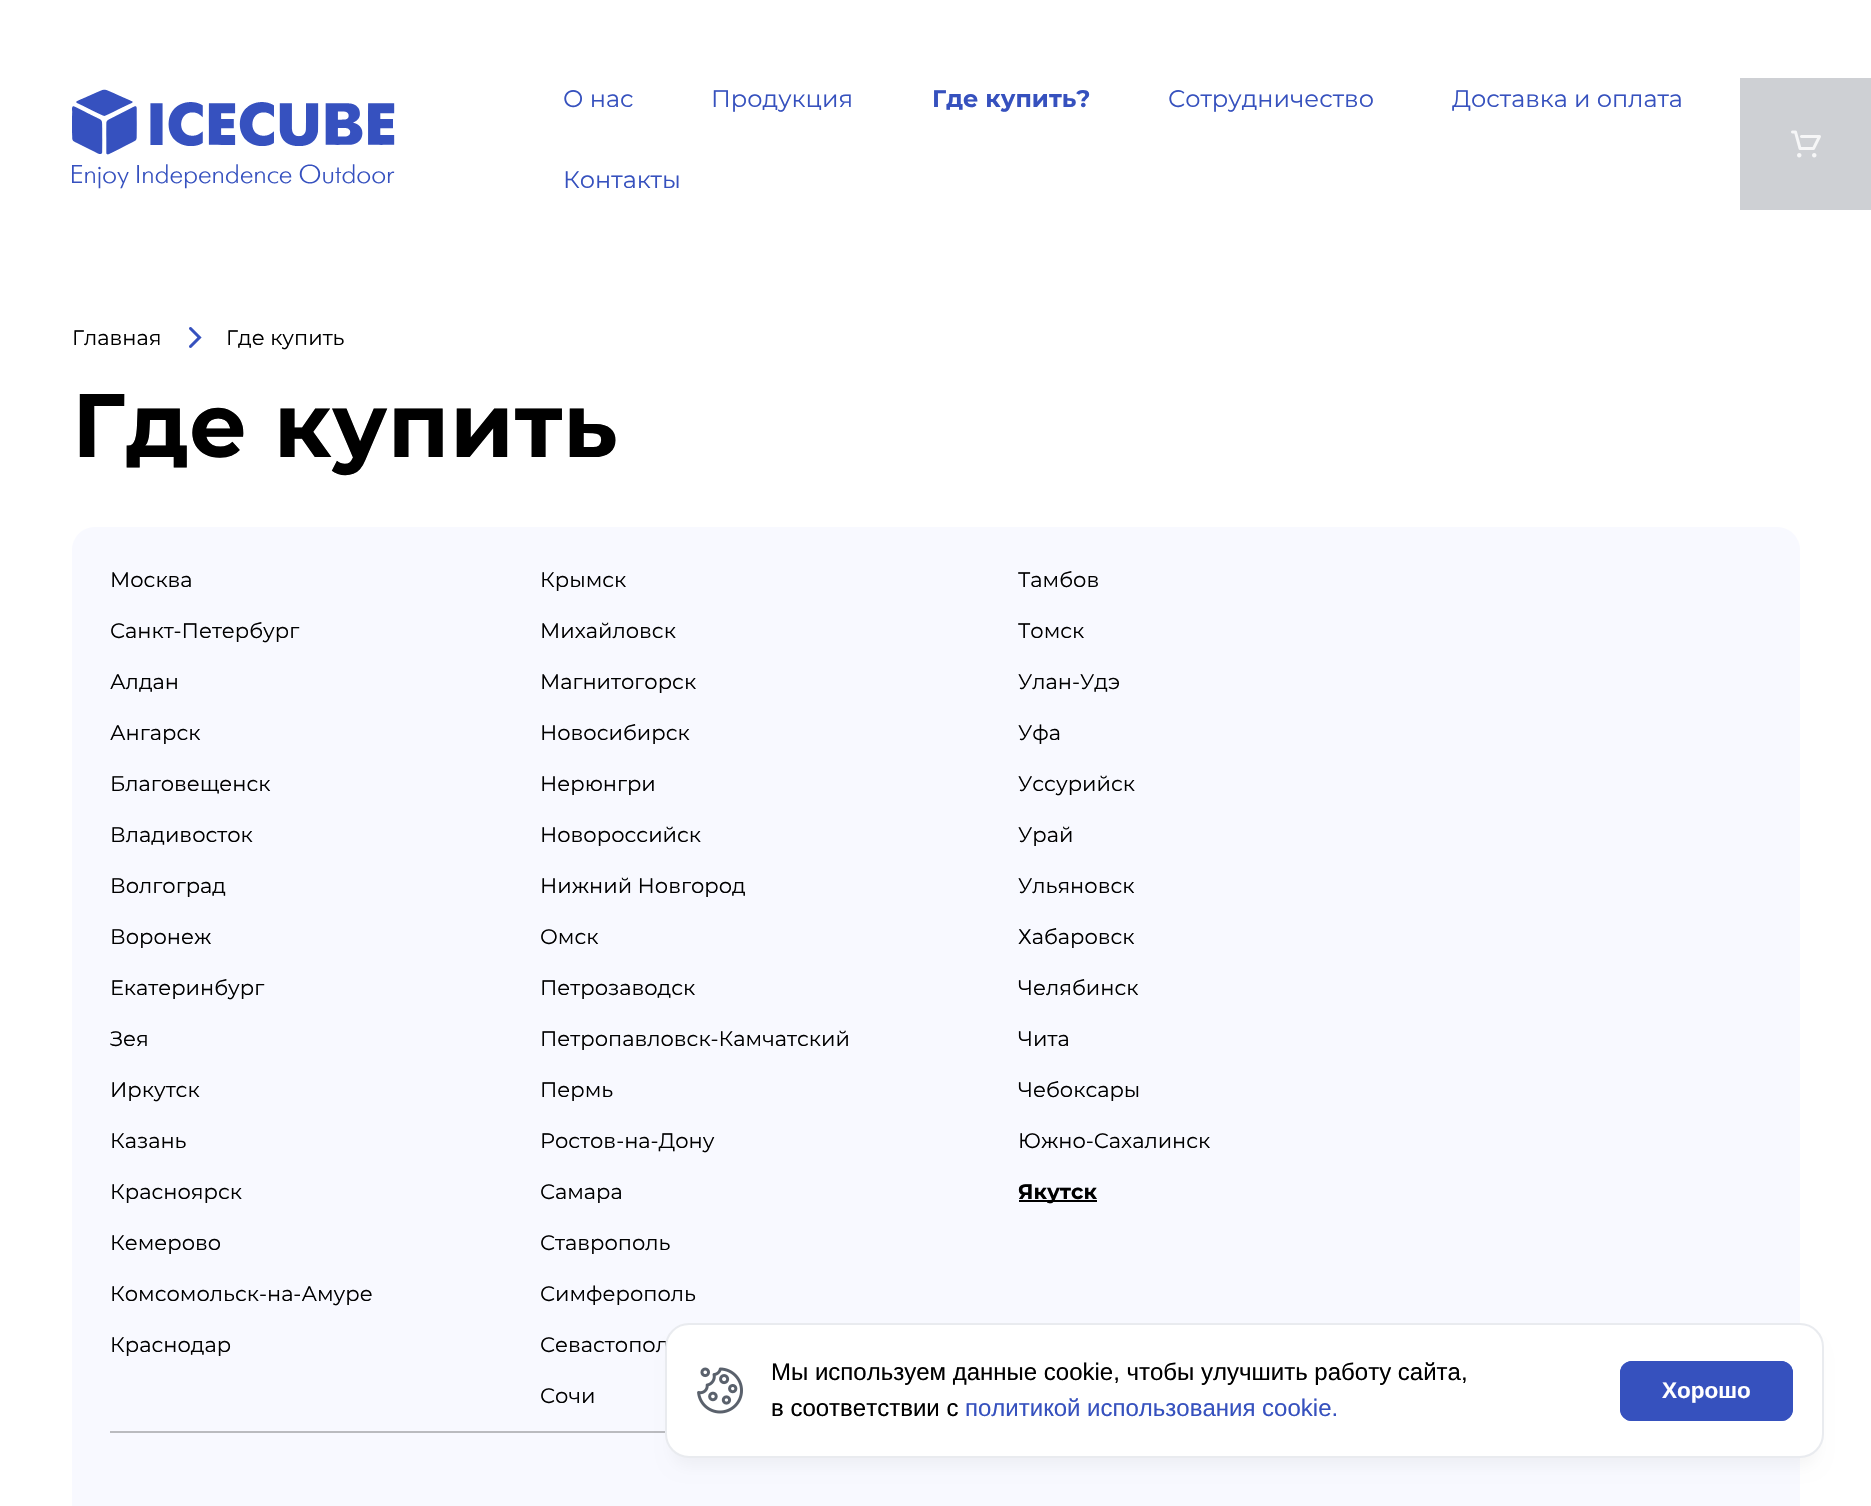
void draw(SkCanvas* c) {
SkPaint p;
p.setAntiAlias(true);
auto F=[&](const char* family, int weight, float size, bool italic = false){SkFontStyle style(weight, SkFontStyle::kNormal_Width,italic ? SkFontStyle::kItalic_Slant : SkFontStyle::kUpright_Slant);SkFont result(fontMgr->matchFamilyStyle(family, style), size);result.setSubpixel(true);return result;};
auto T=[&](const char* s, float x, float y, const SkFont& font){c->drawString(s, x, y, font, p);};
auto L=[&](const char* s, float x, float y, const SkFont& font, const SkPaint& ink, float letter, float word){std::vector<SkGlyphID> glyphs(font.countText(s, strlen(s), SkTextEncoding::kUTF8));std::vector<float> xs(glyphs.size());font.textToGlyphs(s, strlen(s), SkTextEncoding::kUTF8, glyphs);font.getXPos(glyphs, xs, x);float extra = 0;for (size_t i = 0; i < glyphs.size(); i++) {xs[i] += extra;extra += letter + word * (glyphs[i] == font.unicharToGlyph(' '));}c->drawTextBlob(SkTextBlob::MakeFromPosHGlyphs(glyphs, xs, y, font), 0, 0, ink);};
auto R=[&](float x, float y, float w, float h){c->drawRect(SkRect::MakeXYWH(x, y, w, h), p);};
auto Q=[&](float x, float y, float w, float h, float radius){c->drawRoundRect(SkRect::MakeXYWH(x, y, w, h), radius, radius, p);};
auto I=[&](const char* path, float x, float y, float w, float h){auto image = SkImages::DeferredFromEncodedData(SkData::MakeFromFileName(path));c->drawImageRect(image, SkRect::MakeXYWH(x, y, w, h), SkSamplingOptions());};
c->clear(0xffffffff);
I("1.png",72,89,323,100);
auto f1 = F("Montserrat",400,24);
p.setColor(0xff3651be);
T("О нас",563,107,f1);
T("Продукция",711,107,f1);
auto f2 = F("Montserrat",700,24);
T("Где купить?",932,107,f2);
T("Сотрудничество",1168,107,f1);
T("Доставка и оплата",1452,107,f1);
T("Контакты",563,188,f1);
p.setColor(0xffced0d4);
R(1740,78,131,132);
I("2.png",1791,130,30,28);
auto f3 = F("Montserrat",400,21);
p.setColor(0xff000000);
T("Главная",72,345,f3);
I("3.png",189,327,13,21);
T("Где купить",226,345,f3);
auto f4 = F("Montserrat",700,90);
L("Где купить",72,457,f4,p,.5,0);
p.setColor(0xfff8f9ff);
Q(72,527,1728,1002,23);
p.setColor(0xff000000);
T("Москва",110,587,f3);
T("Санкт-Петербург",110,638,f3);
T("Алдан",110,689,f3);
T("Ангарск",110,740,f3);
T("Благовещенск",110,791,f3);
T("Владивосток",110,842,f3);
T("Волгоград",110,893,f3);
T("Воронеж",110,944,f3);
T("Екатеринбург",110,995,f3);
T("Зея",110,1046,f3);
T("Иркутск",110,1097,f3);
T("Казань",110,1148,f3);
T("Красноярск",110,1199,f3);
T("Кемерово",110,1250,f3);
T("Комсомольск-на-Амуре",110,1301,f3);
T("Краснодар",110,1352,f3);
T("Крымск",540,587,f3);
T("Михайловск",540,638,f3);
T("Магнитогорск",540,689,f3);
T("Новосибирск",540,740,f3);
T("Нерюнгри",540,791,f3);
T("Новороссийск",540,842,f3);
T("Нижний Новгород",540,893,f3);
T("Омск",540,944,f3);
T("Петрозаводск",540,995,f3);
T("Петропавловск-Камчатский",540,1046,f3);
T("Пермь",540,1097,f3);
T("Ростов-на-Дону",540,1148,f3);
T("Самара",540,1199,f3);
T("Ставрополь",540,1250,f3);
T("Симферополь",540,1301,f3);
T("Севастопол",540,1352,f3);
T("Сочи",540,1403,f3);
T("Тамбов",1018,587,f3);
T("Томск",1018,638,f3);
T("Улан-Удэ",1018,689,f3);
T("Уфа",1018,740,f3);
T("Уссурийск",1018,791,f3);
T("Урай",1018,842,f3);
T("Ульяновск",1018,893,f3);
T("Хабаровск",1018,944,f3);
T("Челябинск",1018,995,f3);
T("Чита",1018,1046,f3);
T("Чебоксары",1018,1097,f3);
T("Южно-Сахалинск",1018,1148,f3);
R(1019,1200,78,2);
auto f5 = F("Montserrat",700,21);
T("Якутск",1018,1199,f5);
p.setColor(0xffbabbbf);
R(110,1431,555,2);
p.setColor(0x0a000000);
p.setMaskFilter(SkMaskFilter::MakeBlur(kNormal_SkBlurStyle, 7.5));
c->drawRoundRect(SkRect::MakeXYWH(672,1346,1145,120),17,17,p);
p.setMaskFilter(nullptr);
p.setColor(0xffffffff);
c->drawRoundRect(SkRect::MakeXYWH(666,1324,1157,133),23,23,p);
p.setStroke(true);
p.setStrokeWidth(2);
p.setColor(0xffe9ebef);
c->drawRoundRect(SkRect::MakeXYWH(666,1324,1157,133),23,23,p);
I("4.png",697,1367,46,47);
auto f6 = F("Liberation Sans",400,24);
p.setStroke(false);
p.setColor(0xff000000);
T("Мы используем данные cookie, чтобы улучшить работу сайта,",771,1380,f6);
T("в соответствии с",771,1416,f6);
p.setColor(0xff3651be);
T("политикой использования cookie.",965,1416,f6);
Q(1620,1361,173,60,12);
p.setStroke(true);
c->drawRoundRect(SkRect::MakeXYWH(1621,1362,171,58),11,11,p);
auto f7 = F("Liberation Sans",700,22.5);
p.setStroke(false);
p.setColor(0xffffffff);
T("Хорошо",1662,1398,f7);
}
